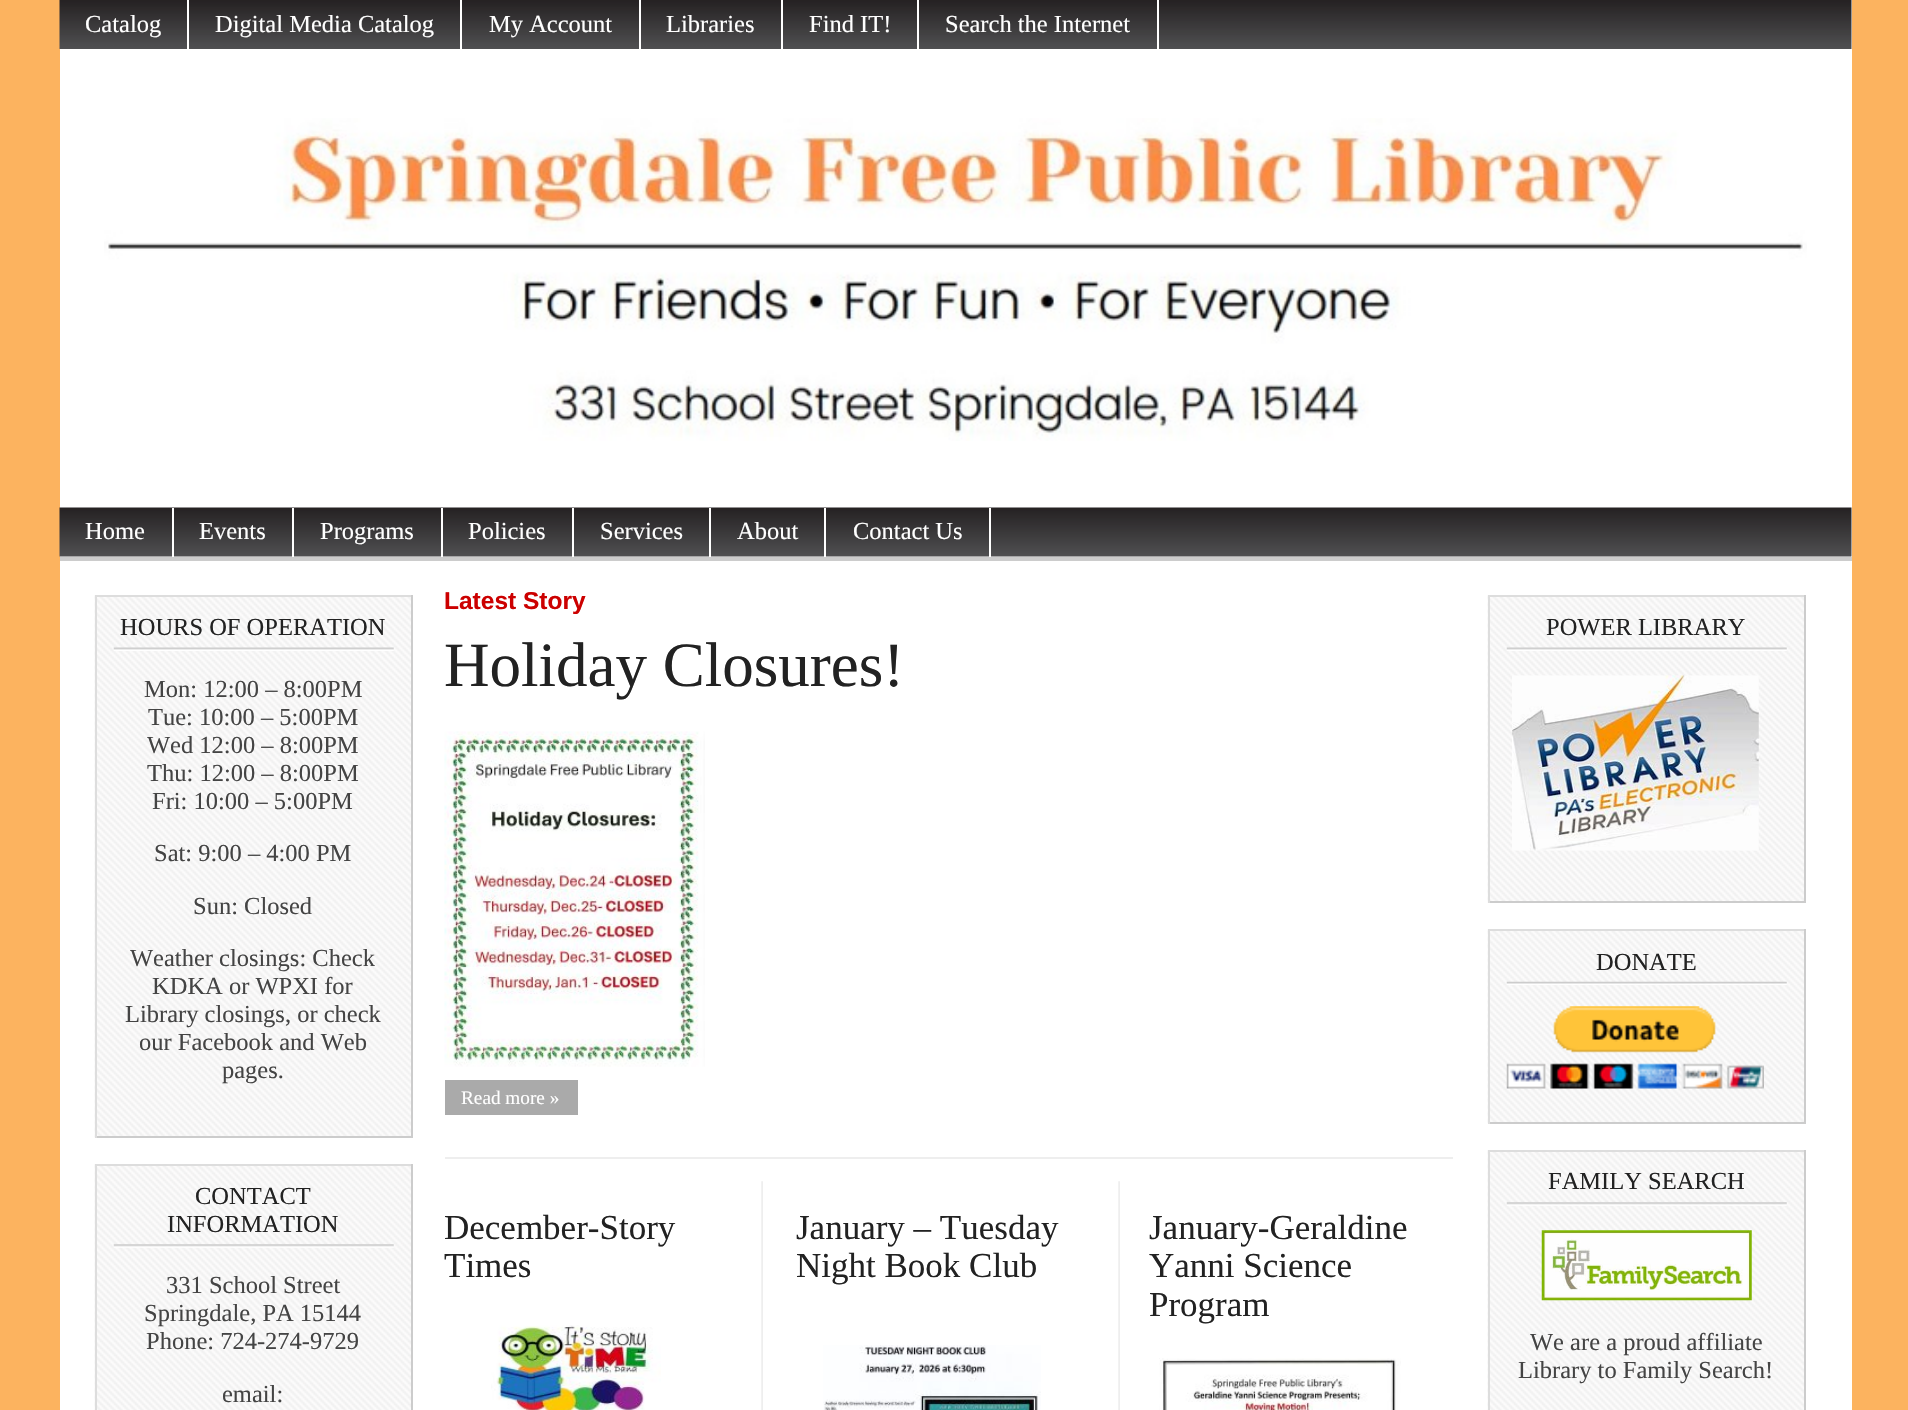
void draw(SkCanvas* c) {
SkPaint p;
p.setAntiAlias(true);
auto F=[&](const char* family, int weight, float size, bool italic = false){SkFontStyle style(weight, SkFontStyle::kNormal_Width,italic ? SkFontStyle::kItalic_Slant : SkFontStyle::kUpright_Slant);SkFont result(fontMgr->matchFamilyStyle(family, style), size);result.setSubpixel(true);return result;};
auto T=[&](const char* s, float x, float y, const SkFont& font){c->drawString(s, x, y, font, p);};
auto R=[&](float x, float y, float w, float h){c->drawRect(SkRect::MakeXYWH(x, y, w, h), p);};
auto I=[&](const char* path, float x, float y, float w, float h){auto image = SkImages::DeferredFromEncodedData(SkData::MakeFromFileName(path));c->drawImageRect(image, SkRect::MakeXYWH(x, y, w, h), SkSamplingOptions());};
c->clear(0xfffcb35f);
p.setColor(0xffffffff);
R(60,0,1792,557);
I("1.png",59,0,1793,49);
R(187,0,2,49);
auto f1 = F("Liberation Serif",400,24.5);
T("Catalog",85,32,f1);
R(460,0,2,49);
T("Digital Media Catalog",215,32,f1);
R(639,0,2,49);
T("My Account",489,32,f1);
R(781,0,2,49);
T("Libraries",666,32,f1);
R(917,0,2,49);
T("Find IT!",809,32,f1);
R(1157,0,2,49);
T("Search the Internet",945,32,f1);
I("2.png",104,118,1703,323);
I("3.png",59,507,1793,50);
R(172,508,2,49);
T("Home",85,539,f1);
R(292,508,2,49);
T("Events",199,539,f1);
R(441,508,2,49);
T("Programs",320,539,f1);
R(572,508,2,49);
T("Policies",468,539,f1);
R(709,508,2,49);
T("Services",600,539,f1);
R(824,508,2,49);
T("About",737,539,f1);
R(989,508,2,49);
T("Contact Us",853,539,f1);
R(60,561,1792,849);
p.setColor(0xffcccccc);
R(60,557,1792,4);
I("4.png",94,595,317,543);
p.setColor(0xffdddddd);
R(95,595,318,2);
p.setColor(0xffcccccc);
R(411,595,2,543);
R(95,1136,318,2);
p.setColor(0xffdddddd);
R(95,595,2,543);
I("5.png",113,647,281,4);
p.setColor(0xff222222);
T("HOURS OF OPERATION",120,635,f1);
p.setColor(0xff444444);
T("Mon: 12:00 – 8:00PM",144,697,f1);
T("Tue: 10:00 – 5:00PM",148,725,f1);
T("Wed 12:00 – 8:00PM",147,753,f1);
T("Thu: 12:00 – 8:00PM",147,781,f1);
T("Fri: 10:00 – 5:00PM",152,809,f1);
T("Sat: 9:00 – 4:00 PM",154,861,f1);
T("Sun: Closed",193,914,f1);
T("Weather closings: Check",130,966,f1);
T("KDKA or WPXI for",152,994,f1);
T("Library closings, or check",125,1022,f1);
T("our Facebook and Web",139,1050,f1);
T("pages.",222,1078,f1);
I("6.png",94,1164,317,246);
p.setColor(0xffdddddd);
R(95,1164,318,2);
p.setColor(0xffcccccc);
R(411,1164,2,246);
p.setColor(0xffdddddd);
R(95,1164,2,246);
I("7.png",113,1244,281,4);
p.setColor(0xff222222);
T("CONTACT",195,1204,f1);
T("INFORMATION",167,1232,f1);
p.setColor(0xff444444);
T("331 School Street",166,1293,f1);
T("Springdale, PA 15144",144,1321,f1);
T("Phone: 724-274-9729",146,1349,f1);
T("email:",222,1402,f1);
auto f2 = F("Liberation Sans",700,24.5);
p.setColor(0xffcc0000);
T("Latest Story",444,609,f2);
p.setColor(0xffeeeeee);
R(445,1157,1008,2);
auto f3 = F("Liberation Serif",400,63);
p.setColor(0xff222222);
T("Holiday Closures!",444,686,f3);
I("8.png",444,731,261,336);
p.setColor(0xffaaaaaa);
R(445,1080,133,35);
auto f4 = F("Liberation Serif",400,19.25);
p.setColor(0xffffffff);
T("Read more »",461,1104,f4);
I("9.png",761,1181,2,229);
I("9.png",1118,1181,2,229);
auto f5 = F("Liberation Serif",400,35);
p.setColor(0xff222222);
T("December-Story",444,1239,f5);
T("Times",444,1277,f5);
I("10.png",491,1325,170,85);
T("January – Tuesday",796,1239,f5);
T("Night Book Club",796,1277,f5);
I("11.png",823,1345,218,65);
T("January-Geraldine",1149,1239,f5);
T("Yanni Science",1149,1277,f5);
T("Program",1149,1316,f5);
I("12.png",1159,1358,242,52);
I("13.png",1487,595,317,308);
p.setColor(0xffdddddd);
R(1488,595,318,2);
p.setColor(0xffcccccc);
R(1804,595,2,308);
R(1488,901,318,2);
p.setColor(0xffdddddd);
R(1488,595,2,308);
I("5.png",1506,647,281,4);
p.setColor(0xff222222);
T("POWER LIBRARY",1546,635,f1);
I("14.png",1512,675,247,176);
I("15.png",1487,929,317,195);
p.setColor(0xffdddddd);
R(1488,929,318,2);
p.setColor(0xffcccccc);
R(1804,929,2,195);
R(1488,1122,318,2);
p.setColor(0xffdddddd);
R(1488,929,2,195);
I("16.png",1506,981,281,4);
p.setColor(0xff222222);
T("DONATE",1596,970,f1);
I("17.png",1506,1006,258,83);
I("18.png",1487,1150,317,260);
p.setColor(0xffdddddd);
R(1488,1150,318,2);
p.setColor(0xffcccccc);
R(1804,1150,2,260);
p.setColor(0xffdddddd);
R(1488,1150,2,260);
I("7.png",1506,1202,281,4);
p.setColor(0xff222222);
T("FAMILY SEARCH",1548,1189,f1);
I("19.png",1541,1230,211,71);
p.setColor(0xff444444);
T("We are a proud affiliate",1530,1350,f1);
T("Library to Family Search!",1518,1378,f1);
}
